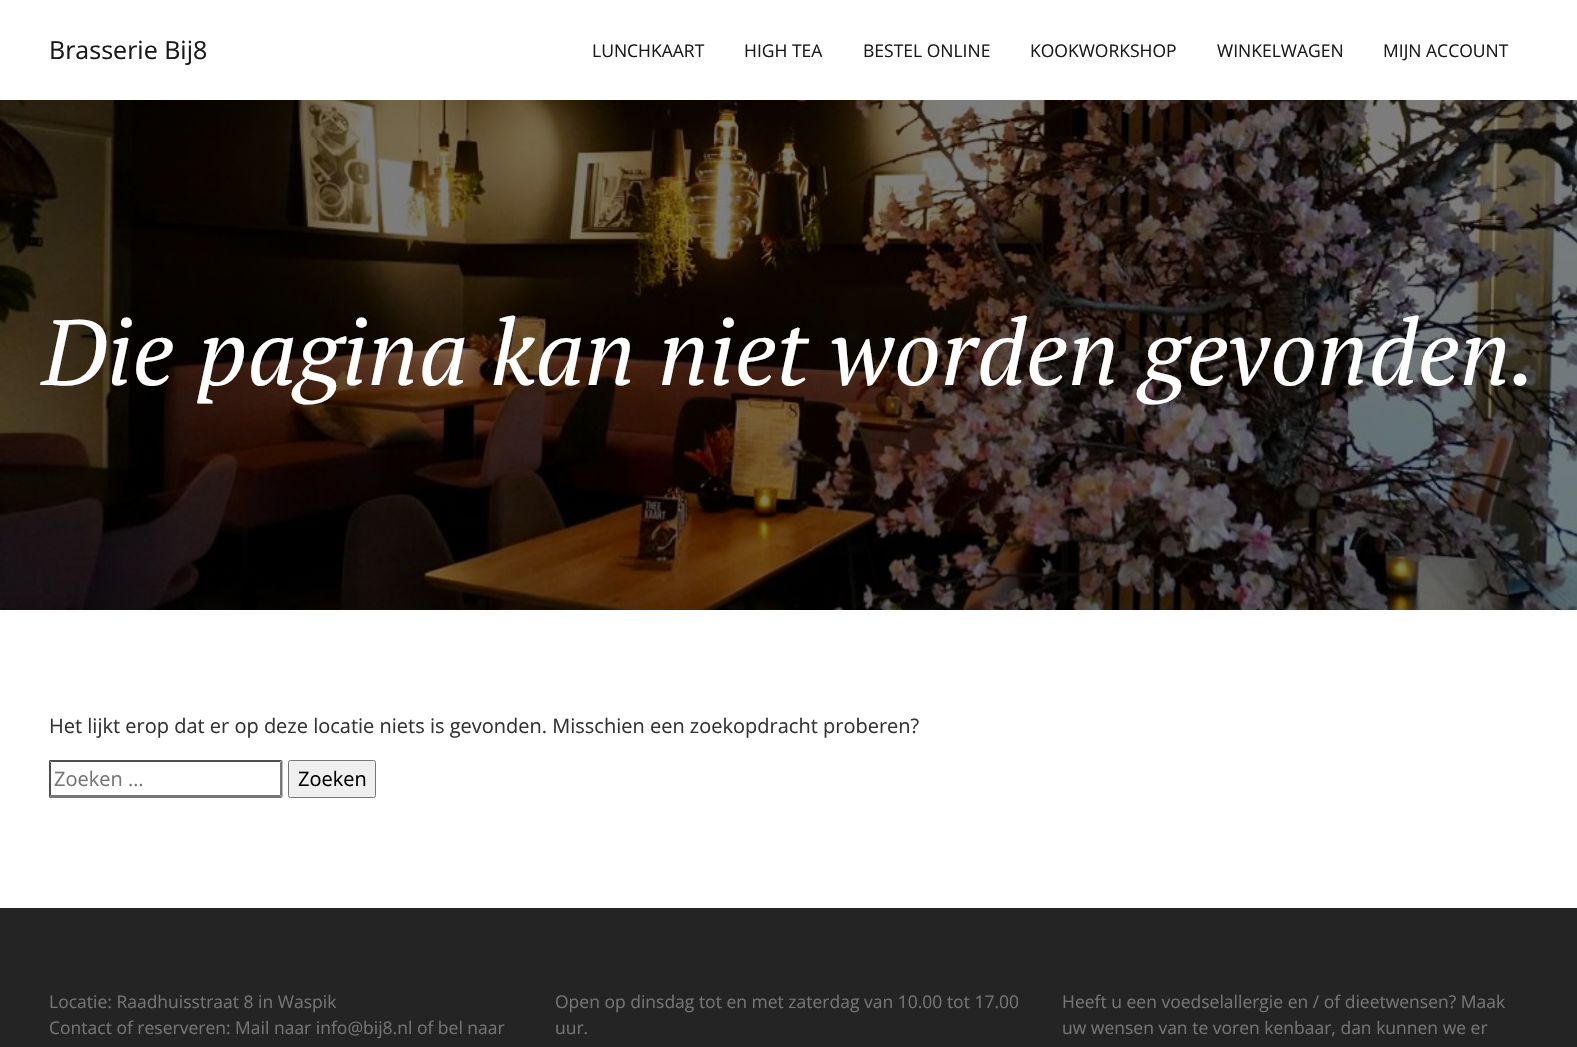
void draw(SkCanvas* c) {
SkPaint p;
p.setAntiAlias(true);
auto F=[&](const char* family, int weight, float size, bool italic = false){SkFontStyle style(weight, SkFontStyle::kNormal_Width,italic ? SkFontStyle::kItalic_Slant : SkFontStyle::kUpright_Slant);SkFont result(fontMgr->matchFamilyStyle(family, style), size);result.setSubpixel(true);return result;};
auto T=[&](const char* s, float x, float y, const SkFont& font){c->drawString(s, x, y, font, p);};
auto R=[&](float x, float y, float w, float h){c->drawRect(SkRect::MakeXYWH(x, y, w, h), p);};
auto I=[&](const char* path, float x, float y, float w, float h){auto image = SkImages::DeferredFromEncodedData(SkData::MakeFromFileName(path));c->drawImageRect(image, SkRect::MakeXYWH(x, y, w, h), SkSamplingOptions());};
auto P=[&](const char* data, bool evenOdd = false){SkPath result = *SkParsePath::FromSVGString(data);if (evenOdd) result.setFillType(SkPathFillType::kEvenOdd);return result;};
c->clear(0xffffffff);
auto f1 = F("Open Sans",400,25);
p.setColor(0xff1a1a1a);
T("Brasserie Bij8",49,59,f1);
auto f2 = F("Open Sans",400,17.5);
T("LUNCHKAART",592,57,f2);
T("HIGH TEA",744,57,f2);
T("BESTEL ONLINE",863,57,f2);
T("KOOKWORKSHOP",1030,57,f2);
T("WINKELWAGEN",1217,57,f2);
T("MIJN ACCOUNT",1383,57,f2);
I("1.png",0,100,1577,510);
auto f3 = F("PT Serif",400,92.5,true);
p.setColor(0xffffffff);
T("Die pagina kan niet worden gevonden.",42,385,f3);
auto f4 = F("Open Sans",400,20);
p.setColor(0xff333333);
T("Het lijkt erop dat er op deze locatie niets is gevonden. Misschien een zoekopdracht proberen?",49,733,f4);
p.setColor(0xff4f4f4f);
c->drawPath(P("M49 760h233l-2 2h-229z"),p);
p.setColor(0xff767676);
c->drawPath(P("M282.5 760v37.5l-2.5-2.5v-32.5z"),p);
c->drawPath(P("M282 798h-233l2-3h229z"),p);
p.setColor(0xff4f4f4f);
c->drawPath(P("M49 797.5v-37.5l2 2.5v32.5z"),p);
p.setColor(0xff757575);
T("Zoeken …",54,786,f4);
p.setColor(0xffefefef);
c->drawRoundRect(SkRect::MakeXYWH(288.5,760.5,87,37),2,2,p);
p.setStroke(true);
p.setStrokeWidth(1);
p.setColor(0xff767676);
c->drawRoundRect(SkRect::MakeXYWH(288.5,760.5,87,37),2,2,p);
p.setStroke(false);
p.setColor(0xff000000);
T("Zoeken",298,786,f4);
p.setColor(0xff242424);
R(0,908,1577,139);
p.setColor(0xff757575);
T("Locatie: Raadhuisstraat 8 in Waspik",49,1008,f2);
T("Contact of reserveren: Mail naar info@bij8.nl of bel naar",49,1034,f2);
T("Open op dinsdag tot en met zaterdag van 10.00 tot 17.00",555,1008,f2);
T("uur.",555,1034,f2);
T("Heeft u een voedselallergie en / of dieetwensen? Maak",1062,1008,f2);
T("uw wensen van te voren kenbaar, dan kunnen we er",1062,1034,f2);
}
